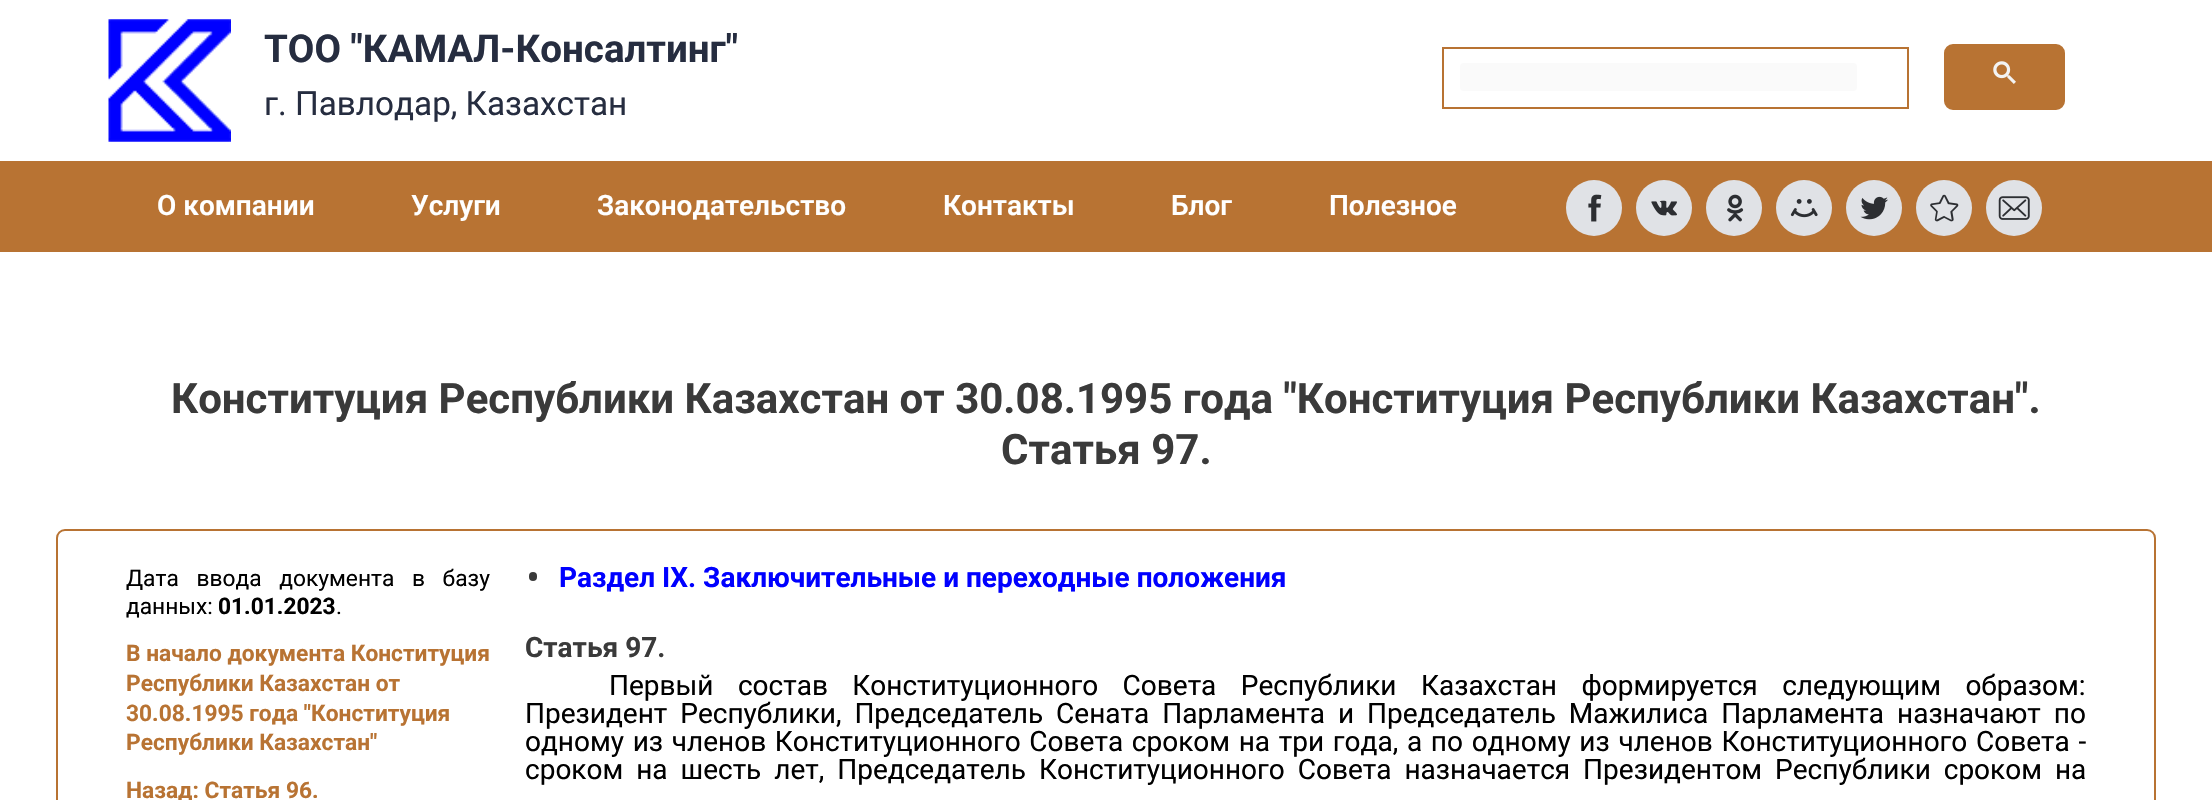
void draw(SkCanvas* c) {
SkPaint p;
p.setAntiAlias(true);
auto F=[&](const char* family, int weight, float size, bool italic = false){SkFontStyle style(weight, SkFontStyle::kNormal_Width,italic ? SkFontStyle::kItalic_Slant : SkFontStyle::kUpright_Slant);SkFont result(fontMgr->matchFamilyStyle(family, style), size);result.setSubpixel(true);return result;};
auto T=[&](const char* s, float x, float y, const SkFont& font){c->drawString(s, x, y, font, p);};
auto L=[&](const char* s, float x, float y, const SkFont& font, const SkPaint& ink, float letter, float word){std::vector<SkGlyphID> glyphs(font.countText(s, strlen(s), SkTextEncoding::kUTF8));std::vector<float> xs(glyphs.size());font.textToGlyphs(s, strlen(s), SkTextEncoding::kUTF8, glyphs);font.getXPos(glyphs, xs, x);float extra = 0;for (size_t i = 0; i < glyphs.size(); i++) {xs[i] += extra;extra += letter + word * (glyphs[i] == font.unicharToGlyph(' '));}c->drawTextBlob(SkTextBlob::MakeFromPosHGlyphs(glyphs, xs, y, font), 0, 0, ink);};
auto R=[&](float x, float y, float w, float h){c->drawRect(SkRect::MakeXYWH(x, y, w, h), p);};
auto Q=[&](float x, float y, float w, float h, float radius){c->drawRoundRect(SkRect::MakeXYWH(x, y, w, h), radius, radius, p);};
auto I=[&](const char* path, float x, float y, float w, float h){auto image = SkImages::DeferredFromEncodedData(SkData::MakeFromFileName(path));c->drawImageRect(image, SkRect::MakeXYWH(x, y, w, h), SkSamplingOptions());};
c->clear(0xffffffff);
I("1.png",108,19,123,123);
auto f1 = F("Roboto",700,38.5);
p.setColor(0xff262d40);
T("ТОО \"КАМАЛ-Консалтинг\"",264,62,f1);
auto f2 = F("Roboto",400,33.25);
T("г. Павлодар, Казахстан",264,115,f2);
p.setStroke(true);
p.setStrokeWidth(2);
p.setColor(0xffb87333);
c->drawRect(SkRect::MakeXYWH(1443,48,465,60),p);
p.setStroke(false);
p.setColor(0xfffafafa);
Q(1460,63,397,28,4);
p.setColor(0xffb87333);
c->drawRoundRect(SkRect::MakeXYWH(1945,45,119,64),8,8,p);
p.setStroke(true);
c->drawRoundRect(SkRect::MakeXYWH(1945,45,119,64),8,8,p);
I("2.png",1993,61,23,23);
p.setStroke(false);
R(0,161,2212,91);
auto f3 = F("Roboto",600,28);
p.setColor(0xffffffff);
T("О компании",157,215,f3);
T("Услуги",411,215,f3);
T("Законодательство",597,215,f3);
T("Контакты",943,215,f3);
T("Блог",1171,215,f3);
T("Полезное",1329,215,f3);
p.setColor(0xffe0e2e6);
c->drawCircle(1594,208,28,p);
I("3.png",1588,194,14,28);
c->drawCircle(1664,208,28,p);
I("4.png",1651,200,26,16);
c->drawCircle(1734,208,28,p);
I("5.png",1727,194,17,28);
c->drawCircle(1804,208,28,p);
I("6.png",1790,199,28,19);
c->drawCircle(1874,208,28,p);
I("7.png",1860,196,28,24);
c->drawCircle(1944,208,28,p);
I("8.png",1930,194,29,28);
c->drawCircle(2014,208,28,p);
I("9.png",1998,196,32,24);
auto f4 = F("Roboto",700,42);
p.setColor(0xff3a3a3a);
T("Конституция Республики Казахстан от 30.08.1995 года \"Конституция Республики Казахстан\".",171,413,f4);
T("Статья 97.",1001,464,f4);
p.setStroke(true);
p.setColor(0xffb87333);
c->drawRoundRect(SkRect::MakeXYWH(57,530,2098,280),8,8,p);
auto f5 = F("Roboto",400,22.75);
p.setStroke(false);
p.setColor(0xff000000);
L("Дата ввода документа в базу",126,586,f5,p,0,12);
T("данных:",126,614,f5);
auto f6 = F("Roboto",700,22.75);
T("01.01.2023",218,614,f6);
T(".",336,614,f5);
p.setColor(0xffb87333);
T("В начало документа Конституция",126,661,f6);
T("Республики Казахстан от",126,691,f6);
T("30.08.1995 года \"Конституция",126,721,f6);
T("Республики Казахстан\"",126,750,f6);
T("Назад: Статья 96.",126,798,f6);
p.setColor(0xff3a3a3a);
Q(529,572,8,9,4);
auto f7 = F("Roboto",700,28);
p.setColor(0xff0000ff);
T("Раздел IX. Заключительные и переходные положения",559,587,f7);
p.setColor(0xff3a3a3a);
T("Статья 97.",525,657,f7);
auto f8 = F("Roboto",400,28);
p.setColor(0xff000000);
L("Первый состав Конституционного Совета Республики Казахстан формируется следующим образом:",609,695,f8,p,0,17.5);
L("Президент Республики, Председатель Сената Парламента и Председатель Мажилиса Парламента назначают по",525,723,f8,p,0,6);
L("одному из членов Конституционного Совета сроком на три года, а по одному из членов Конституционного Совета -",525,751,f8,p,0,1.75);
L("сроком на шесть лет, Председатель Конституционного Совета назначается Президентом Республики сроком на",525,779,f8,p,0,6);
}
